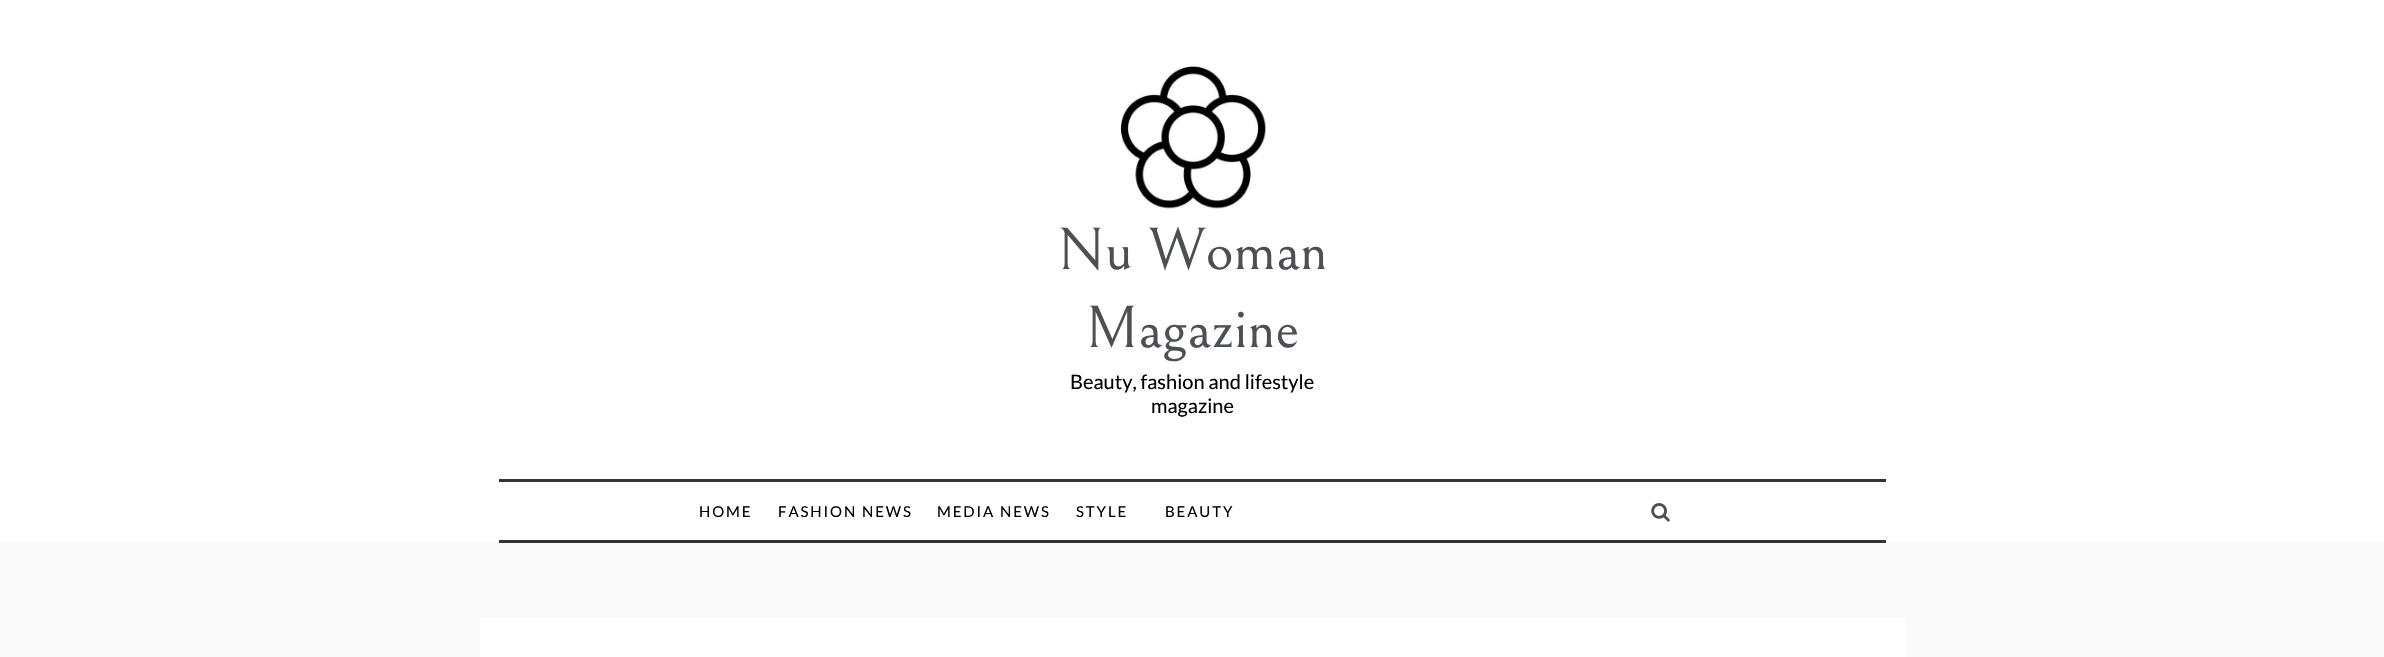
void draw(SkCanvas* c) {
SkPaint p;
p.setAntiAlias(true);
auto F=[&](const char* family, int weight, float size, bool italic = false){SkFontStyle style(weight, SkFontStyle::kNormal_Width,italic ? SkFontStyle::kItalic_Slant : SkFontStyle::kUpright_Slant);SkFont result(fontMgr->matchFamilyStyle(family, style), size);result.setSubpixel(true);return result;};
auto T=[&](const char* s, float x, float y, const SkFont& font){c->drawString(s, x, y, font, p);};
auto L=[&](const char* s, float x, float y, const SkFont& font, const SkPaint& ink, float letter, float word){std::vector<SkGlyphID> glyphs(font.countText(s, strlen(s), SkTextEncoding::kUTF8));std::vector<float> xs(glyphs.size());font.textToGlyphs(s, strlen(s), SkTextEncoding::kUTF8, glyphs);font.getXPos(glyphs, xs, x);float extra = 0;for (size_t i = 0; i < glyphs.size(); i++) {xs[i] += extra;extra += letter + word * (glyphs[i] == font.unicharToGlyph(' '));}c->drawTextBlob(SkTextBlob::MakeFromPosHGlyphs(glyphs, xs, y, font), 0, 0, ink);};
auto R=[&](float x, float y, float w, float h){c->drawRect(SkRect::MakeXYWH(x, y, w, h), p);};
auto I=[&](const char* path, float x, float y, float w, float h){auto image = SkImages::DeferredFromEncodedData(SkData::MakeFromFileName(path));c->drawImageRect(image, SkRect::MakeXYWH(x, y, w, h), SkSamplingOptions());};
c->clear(0xfffafafa);
p.setColor(0xffffffff);
R(0,0,2384,543);
I("1.png",1120,66,146,144);
auto f1 = F("Bellefair",400,60);
p.setColor(0xff4c4f53);
T("Nu Woman",1057,269,f1);
T("Magazine",1085,347,f1);
auto f2 = F("Lato",400,20);
p.setColor(0xff000000);
T("Beauty, fashion and lifestyle",1070,389,f2);
T("magazine",1151,413,f2);
p.setColor(0xff333333);
R(499,479,1387,3);
R(499,540,1387,3);
auto f3 = F("Lato",400,15);
p.setColor(0xff000000);
L("HOME",699,517,f3,p,1.9,0);
L("FASHION NEWS",778,517,f3,p,1.9,0);
L("MEDIA NEWS",937,517,f3,p,1.9,0);
L("STYLE",1076,517,f3,p,1.9,0);
L("BEAUTY",1165,517,f3,p,1.9,0);
I("2.png",1651,503,19,19);
p.setColor(0xffffffff);
R(480,618,1425,39);
}
